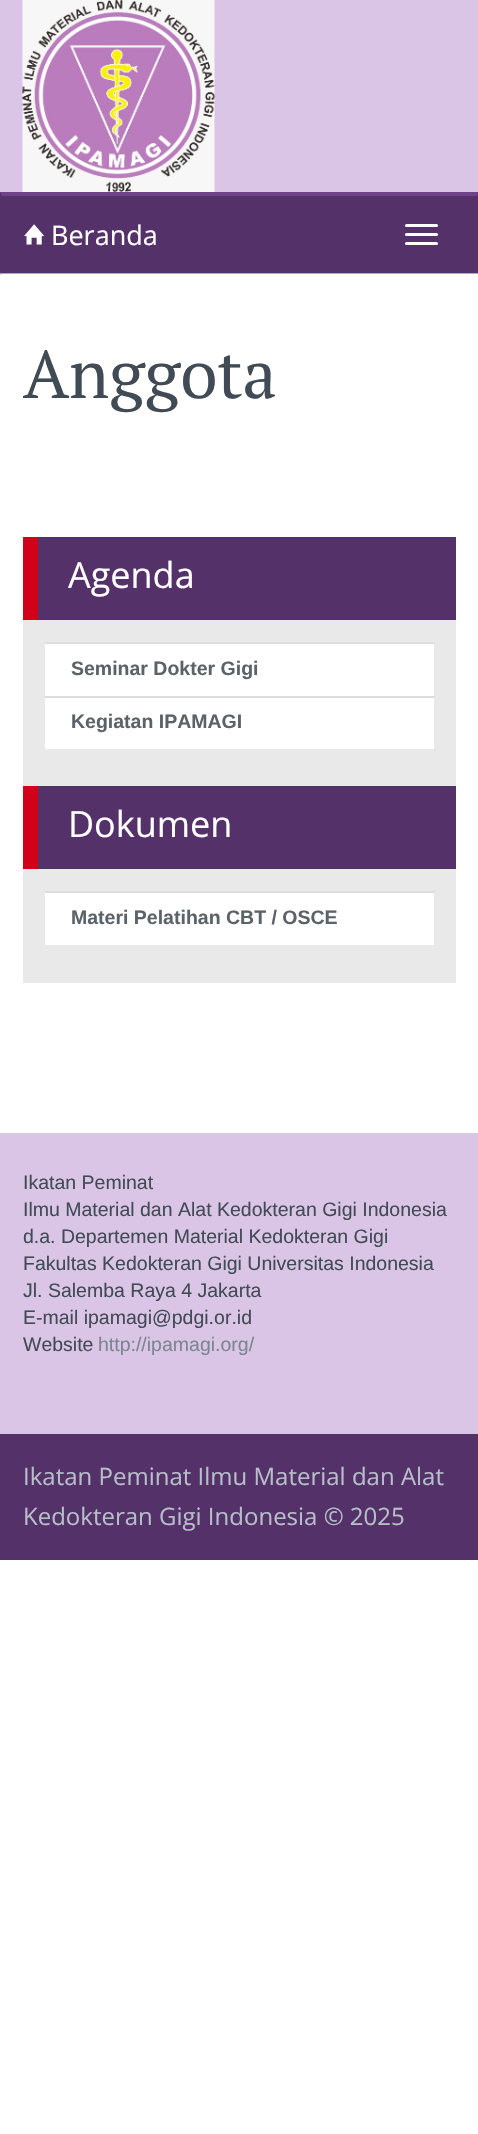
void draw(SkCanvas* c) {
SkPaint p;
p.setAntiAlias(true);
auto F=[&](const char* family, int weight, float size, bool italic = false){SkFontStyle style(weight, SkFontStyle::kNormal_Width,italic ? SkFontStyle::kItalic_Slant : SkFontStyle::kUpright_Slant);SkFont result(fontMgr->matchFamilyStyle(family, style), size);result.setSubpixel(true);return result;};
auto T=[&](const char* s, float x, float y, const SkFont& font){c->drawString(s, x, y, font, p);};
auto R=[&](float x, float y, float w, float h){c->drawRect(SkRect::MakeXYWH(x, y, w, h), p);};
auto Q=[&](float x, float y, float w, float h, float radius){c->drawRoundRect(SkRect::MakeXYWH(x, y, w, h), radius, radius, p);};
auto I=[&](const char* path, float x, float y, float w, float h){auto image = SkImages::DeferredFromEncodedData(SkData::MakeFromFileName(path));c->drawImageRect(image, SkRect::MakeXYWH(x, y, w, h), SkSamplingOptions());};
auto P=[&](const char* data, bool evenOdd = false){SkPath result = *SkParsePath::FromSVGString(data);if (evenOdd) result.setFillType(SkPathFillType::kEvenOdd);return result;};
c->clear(0xffffffff);
p.setColor(0xffdbc5e6);
R(0,0,478,192);
I("1.png",22,0,193,192);
p.setColor(0xff543169);
R(0,192,478,81);
p.setColor(0xff70428b);
c->drawPath(P("M0 192h478l-1 4h-475z"),p);
I("2.png",24,224,21,21);
auto f1 = F("Open Sans",400,27);
p.setColor(0xffffffff);
T("Beranda",51,245,f1);
Q(405,224,33,3,1.5);
Q(405,233,33,3,1.5);
Q(405,242,33,3,1.5);
c->save();
c->clipRect(SkRect::MakeXYWH(0,273,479,860));
p.setColor(0xffababab);
c->drawPath(P("M-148 124h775v1157h-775zm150 150h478c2 0 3 2 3 4v859c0 2-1 3-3 3h-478c-2 0-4-1-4-3v-859c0-2 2-4 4-4z",true),p);
c->restore();
auto f2 = F("PT Serif",400,67.5);
p.setColor(0xff404b55);
T("Anggota",23,398,f2);
p.setColor(0xff543169);
R(38,537,418,83);
p.setColor(0xffd20018);
R(23,537,15,83);
auto f3 = F("Open Sans",400,36);
p.setColor(0xffffffff);
T("Agenda",68,588,f3);
p.setColor(0xffe9e9e9);
R(23,620,433,166);
p.setColor(0xffffffff);
R(45,644,389,52);
p.setColor(0xffdddddd);
R(45,642,390,2);
auto f4 = F("Liberation Sans",700,19.5);
p.setColor(0xff5b6268);
T("Seminar Dokter Gigi",71,675,f4);
p.setColor(0xffffffff);
R(45,698,389,51);
p.setColor(0xffdddddd);
R(45,696,390,2);
p.setColor(0xff5b6268);
T("Kegiatan IPAMAGI",71,728,f4);
p.setColor(0xff543169);
R(38,786,418,83);
p.setColor(0xffd20018);
R(23,786,15,83);
p.setColor(0xffffffff);
T("Dokumen",68,837,f3);
p.setColor(0xffe9e9e9);
R(23,869,433,114);
p.setColor(0xffffffff);
R(45,893,389,52);
p.setColor(0xffdddddd);
R(45,891,390,2);
p.setColor(0xff5b6268);
T("Materi Pelatihan CBT / OSCE",71,924,f4);
p.setColor(0xffdbc5e6);
R(0,1133,478,301);
auto f5 = F("Liberation Sans",400,19.5);
p.setColor(0xff404b55);
T("Ikatan Peminat",23,1189,f5);
T("Ilmu Material dan Alat Kedokteran Gigi Indonesia",23,1216,f5);
T("d.a. Departemen Material Kedokteran Gigi",23,1243,f5);
T("Fakultas Kedokteran Gigi Universitas Indonesia",23,1270,f5);
T("Jl. Salemba Raya 4 Jakarta",23,1297,f5);
T("E-mail ipamagi@pdgi.or.id",23,1324,f5);
T("Website",23,1351,f5);
p.setColor(0xff7b8690);
T("http://ipamagi.org/",98,1351,f5);
p.setColor(0xff543169);
R(0,1434,478,126);
auto f6 = F("Open Sans",400,24);
p.setColor(0xffb6bfc8);
T("Ikatan Peminat Ilmu Material dan Alat",23,1485,f6);
T("Kedokteran Gigi Indonesia © 2025",23,1525,f6);
}
